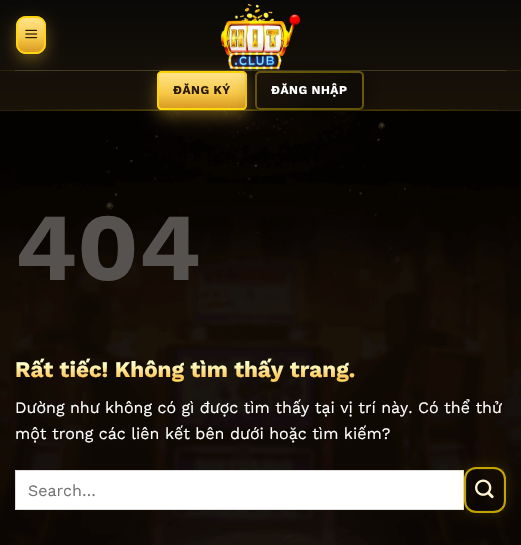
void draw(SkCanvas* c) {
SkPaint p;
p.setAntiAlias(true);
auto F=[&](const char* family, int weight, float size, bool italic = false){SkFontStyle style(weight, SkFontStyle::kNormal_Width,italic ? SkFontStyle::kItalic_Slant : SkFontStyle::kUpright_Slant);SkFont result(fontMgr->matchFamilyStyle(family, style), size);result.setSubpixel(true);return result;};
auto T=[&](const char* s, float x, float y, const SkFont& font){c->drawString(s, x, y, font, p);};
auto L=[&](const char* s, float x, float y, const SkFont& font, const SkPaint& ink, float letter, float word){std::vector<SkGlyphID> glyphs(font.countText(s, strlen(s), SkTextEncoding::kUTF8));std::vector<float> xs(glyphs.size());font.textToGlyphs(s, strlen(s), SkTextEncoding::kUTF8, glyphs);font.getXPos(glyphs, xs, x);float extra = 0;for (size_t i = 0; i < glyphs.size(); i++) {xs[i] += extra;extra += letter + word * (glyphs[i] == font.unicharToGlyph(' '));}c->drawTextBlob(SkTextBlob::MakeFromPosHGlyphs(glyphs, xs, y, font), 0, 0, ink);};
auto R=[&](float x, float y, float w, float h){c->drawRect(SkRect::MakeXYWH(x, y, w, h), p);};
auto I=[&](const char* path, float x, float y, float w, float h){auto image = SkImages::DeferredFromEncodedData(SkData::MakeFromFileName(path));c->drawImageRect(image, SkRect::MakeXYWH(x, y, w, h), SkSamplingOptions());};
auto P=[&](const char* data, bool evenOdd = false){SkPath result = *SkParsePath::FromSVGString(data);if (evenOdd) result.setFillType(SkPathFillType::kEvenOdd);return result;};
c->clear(0xffffffff);
{
const SkColor colors[] = {0xff0a0907,0xff191208};
const float stops[] = {0,1};
const SkPoint ends[] = {{261,0}, {261,111}};
p.setShader(SkGradientShader::MakeLinear(ends, colors, stops, 2, SkTileMode::kClamp));
p.setAlpha(255);
}
R(0,0,521,110);
p.setShader(nullptr);
p.setColor(0xff2c2307);
R(0,70,521,1);
p.setColor(0x59ffc83c);
p.setMaskFilter(SkMaskFilter::MakeBlur(kNormal_SkBlurStyle, 8));
c->drawRoundRect(SkRect::MakeXYWH(16,22,30,38),10,10,p);
p.setMaskFilter(nullptr);
c->save();
c->clipPath(P("M26 16h10c5.5 0 10 4.5 10 10v18c0 5.5-4.5 10-10 10h-10c-5.5 0-10-4.5-10-10v-18c0-5.5 4.5-10 10-10z"),true);
{
const SkColor colors[] = {0xffffe38a,0xfff7c948,0xffd99a23};
const float stops[] = {0,.58,1};
const SkPoint ends[] = {{31,-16}, {31,18}};
p.setShader(SkGradientShader::MakeLinear(ends, colors, stops, 3, SkTileMode::kClamp));
p.setAlpha(255);
}
R(16,16,30,2);
{
const SkColor colors[] = {0xffffe38a,0xfff7c948,0xffd99a23};
const float stops[] = {0,.58,1};
const SkPoint ends[] = {{31,18}, {31,52}};
p.setShader(SkGradientShader::MakeLinear(ends, colors, stops, 3, SkTileMode::kClamp));
p.setAlpha(255);
}
R(16,18,30,34);
{
const SkColor colors[] = {0xffffe38a,0xfff7c948,0xffd99a23};
const float stops[] = {0,.58,1};
const SkPoint ends[] = {{31,52}, {31,86}};
p.setShader(SkGradientShader::MakeLinear(ends, colors, stops, 3, SkTileMode::kClamp));
p.setAlpha(255);
}
R(16,52,30,2);
c->restore();
p.setStroke(true);
p.setStrokeWidth(2);
p.setShader(nullptr);
p.setColor(0xe6ffd700);
c->drawRoundRect(SkRect::MakeXYWH(17,17,28,36),9,9,p);
I("1.png",25,29,13,10);
p.setStroke(false);
p.setColor(0xff2b2207);
R(0,110,521,1);
{
const SkColor colors[] = {0x00ffd700,0x3dffd700,0x00ffd700};
const float stops[] = {0,.5,1};
const SkPoint ends[] = {{0,110}, {521,110}};
p.setShader(SkGradientShader::MakeLinear(ends, colors, stops, 3, SkTileMode::kClamp));
p.setAlpha(255);
}
R(23,109,475,2);
I("3.png",0,111,521,434);
p.setShader(nullptr);
p.setColor(0x59ffc83c);
p.setMaskFilter(SkMaskFilter::MakeBlur(kNormal_SkBlurStyle, 8));
c->drawRoundRect(SkRect::MakeXYWH(157,77,90,39),5,5,p);
p.setMaskFilter(nullptr);
c->save();
c->clipPath(P("M162 71h80c3 0 5 2 5 5v29c0 3-2 5-5 5h-80c-3 0-5-2-5-5v-29c0-3 2-5 5-5z"),true);
{
const SkColor colors[] = {0xffffe38a,0xfff7c948,0xffd99a23};
const float stops[] = {0,.58,1};
const SkPoint ends[] = {{202,38}, {202,73}};
p.setShader(SkGradientShader::MakeLinear(ends, colors, stops, 3, SkTileMode::kClamp));
p.setAlpha(255);
}
R(157,71,90,2);
{
const SkColor colors[] = {0xffffe38a,0xfff7c948,0xffd99a23};
const float stops[] = {0,.58,1};
const SkPoint ends[] = {{202,73}, {202,108}};
p.setShader(SkGradientShader::MakeLinear(ends, colors, stops, 3, SkTileMode::kClamp));
p.setAlpha(255);
}
R(157,73,90,35);
{
const SkColor colors[] = {0xffffe38a,0xfff7c948,0xffd99a23};
const float stops[] = {0,.58,1};
const SkPoint ends[] = {{202,108}, {202,143}};
p.setShader(SkGradientShader::MakeLinear(ends, colors, stops, 3, SkTileMode::kClamp));
p.setAlpha(255);
}
R(157,108,90,2);
c->restore();
p.setStroke(true);
p.setShader(nullptr);
p.setColor(0xe6ffd700);
c->drawRoundRect(SkRect::MakeXYWH(158,72,88,37),4,4,p);
p.setStroke(false);
p.setColor(0x73000000);
p.setMaskFilter(SkMaskFilter::MakeBlur(kNormal_SkBlurStyle, 10));
c->drawRoundRect(SkRect::MakeXYWH(255,77,109,39),5,5,p);
p.setMaskFilter(nullptr);
I("2.png",221,4,79,66);
p.setColor(0x1affffff);
R(15,70,491,1);
auto f1 = F("Work Sans",700,12);
p.setColor(0xff2b1b05);
L("ĐĂNG KÝ",173,94,f1,p,.5,0);
c->save();
c->clipPath(P("M260 71h99c3 0 5 2 5 5v29c0 3-2 5-5 5h-99c-3 0-5-2-5-5v-29c0-3 2-5 5-5z"),true);
{
const SkColor colors[] = {0xff1d140a,0xff0f0c08};
const float stops[] = {0,.65};
const SkPoint ends[] = {{179,19}, {230,92}};
p.setShader(SkGradientShader::MakeLinear(ends, colors, stops, 2, SkTileMode::kClamp));
p.setAlpha(255);
}
R(255,72,2,1);
{
const SkColor colors[] = {0xff1d140a,0xff0f0c08};
const float stops[] = {0,.65};
const SkPoint ends[] = {{284,19}, {335,92}};
p.setShader(SkGradientShader::MakeLinear(ends, colors, stops, 2, SkTileMode::kClamp));
p.setAlpha(255);
}
R(257,71,105,2);
{
const SkColor colors[] = {0xff1d140a,0xff0f0c08};
const float stops[] = {0,.65};
const SkPoint ends[] = {{179,54}, {230,127}};
p.setShader(SkGradientShader::MakeLinear(ends, colors, stops, 2, SkTileMode::kClamp));
p.setAlpha(255);
}
R(255,73,2,35);
c->restore();
{
const SkColor colors[] = {0xff1d140a,0xff0f0c08};
const float stops[] = {0,.65};
const SkPoint ends[] = {{284,54}, {335,127}};
p.setShader(SkGradientShader::MakeLinear(ends, colors, stops, 2, SkTileMode::kClamp));
p.setAlpha(255);
}
R(257,73,105,35);
c->save();
c->clipPath(P("M260 71h99c3 0 5 2 5 5v29c0 3-2 5-5 5h-99c-3 0-5-2-5-5v-29c0-3 2-5 5-5z"),true);
{
const SkColor colors[] = {0xff1d140a,0xff0f0c08};
const float stops[] = {0,.65};
const SkPoint ends[] = {{389,54}, {440,127}};
p.setShader(SkGradientShader::MakeLinear(ends, colors, stops, 2, SkTileMode::kClamp));
p.setAlpha(255);
}
R(362,73,2,35);
{
const SkColor colors[] = {0xff1d140a,0xff0f0c08};
const float stops[] = {0,.65};
const SkPoint ends[] = {{179,89}, {230,162}};
p.setShader(SkGradientShader::MakeLinear(ends, colors, stops, 2, SkTileMode::kClamp));
p.setAlpha(255);
}
R(255,108,2,1);
{
const SkColor colors[] = {0xff1d140a,0xff0f0c08};
const float stops[] = {0,.65};
const SkPoint ends[] = {{284,89}, {335,162}};
p.setShader(SkGradientShader::MakeLinear(ends, colors, stops, 2, SkTileMode::kClamp));
p.setAlpha(255);
}
R(257,108,105,2);
{
const SkColor colors[] = {0xff1d140a,0xff0f0c08};
const float stops[] = {0,.65};
const SkPoint ends[] = {{389,89}, {440,162}};
p.setShader(SkGradientShader::MakeLinear(ends, colors, stops, 2, SkTileMode::kClamp));
p.setAlpha(255);
}
R(362,108,2,1);
c->restore();
p.setStroke(true);
p.setShader(nullptr);
p.setColor(0x59ffd700);
c->drawRoundRect(SkRect::MakeXYWH(256,72,107,37),4,4,p);
p.setStroke(false);
p.setColor(0xffffffff);
L("ĐĂNG NHẬP",271,94,f1,p,.5,0);
auto f2 = F("Work Sans",700,96);
p.setColor(0xff56524f);
T("404",15,280,f2);
auto f3 = F("Work Sans",700,22.4);
{
const SkColor colors[] = {0xfffede5e,0xfffdbd44,0xfffdffc9};
const float stops[] = {.13,.13,.7};
const SkPoint ends[] = {{261,384}, {261,355}};
p.setShader(SkGradientShader::MakeLinear(ends, colors, stops, 3, SkTileMode::kClamp));
p.setAlpha(255);
}
T("Rất tiếc! Không tìm thấy trang.",15,377,f3);
auto f4 = F("Work Sans",400,16);
p.setShader(nullptr);
p.setColor(0xffffffff);
T("Dường như không có gì được tìm thấy tại vị trí này. Có thể thử",15,413,f4);
T("một trong các liên kết bên dưới hoặc tìm kiếm?",15,439,f4);
c->drawRect(SkRect::MakeXYWH(15.5,470.5,448,39),p);
p.setStroke(true);
p.setStrokeWidth(1);
p.setColor(0xffdddddd);
c->drawRect(SkRect::MakeXYWH(15.5,470.5,448,39),p);
p.setStroke(false);
p.setColor(0xff757575);
T("Search…",28,496,f4);
c->save();
c->clipPath(P("M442 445h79v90h-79zm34 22h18c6.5 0 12 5.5 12 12v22c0 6.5-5.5 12-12 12h-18c-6.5 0-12-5.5-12-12v-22c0-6.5 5.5-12 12-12z",true),true);
p.setColor(0x26ffd700);
p.setMaskFilter(SkMaskFilter::MakeBlur(kNormal_SkBlurStyle, 7));
c->drawRoundRect(SkRect::MakeXYWH(464,467,42,46),12,12,p);
p.setMaskFilter(nullptr);
c->restore();
p.setStroke(true);
p.setColor(0x0fffffff);
c->drawRect(SkRect::MakeXYWH(466.5,469.5,37,41),p);
p.setStrokeWidth(2);
p.setColor(0xbfffd700);
c->drawRoundRect(SkRect::MakeXYWH(465,468,40,44),11,11,p);
I("4.png",475,479,19,20);
}
